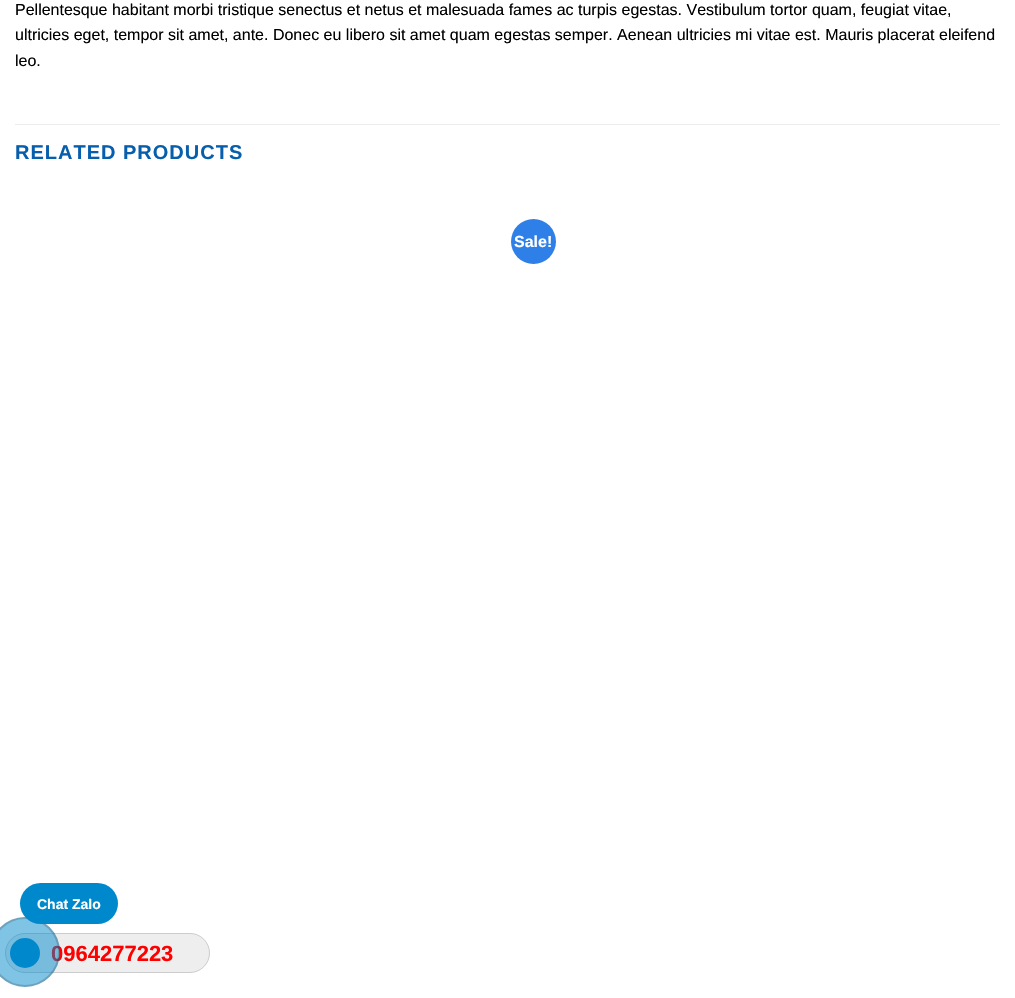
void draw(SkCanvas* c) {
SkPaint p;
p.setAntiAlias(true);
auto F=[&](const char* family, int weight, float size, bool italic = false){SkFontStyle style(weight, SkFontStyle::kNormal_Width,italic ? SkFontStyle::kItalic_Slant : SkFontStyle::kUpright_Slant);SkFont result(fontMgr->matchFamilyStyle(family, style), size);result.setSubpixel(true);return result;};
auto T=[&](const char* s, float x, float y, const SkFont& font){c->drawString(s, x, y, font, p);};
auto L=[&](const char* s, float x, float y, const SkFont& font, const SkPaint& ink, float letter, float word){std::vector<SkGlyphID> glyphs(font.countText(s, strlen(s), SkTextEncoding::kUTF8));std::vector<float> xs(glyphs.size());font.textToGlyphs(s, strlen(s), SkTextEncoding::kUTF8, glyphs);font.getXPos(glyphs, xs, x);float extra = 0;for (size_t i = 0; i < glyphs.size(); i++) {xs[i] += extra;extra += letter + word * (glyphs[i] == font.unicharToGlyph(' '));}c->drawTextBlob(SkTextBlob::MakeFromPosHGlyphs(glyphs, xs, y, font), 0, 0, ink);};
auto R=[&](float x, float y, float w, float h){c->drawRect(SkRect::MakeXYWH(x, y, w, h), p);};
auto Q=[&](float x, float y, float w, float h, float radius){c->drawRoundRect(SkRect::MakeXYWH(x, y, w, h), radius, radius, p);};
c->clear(0xffffffff);
auto f1 = F("Liberation Sans",400,16);
p.setColor(0xff000000);
T("Pellentesque habitant morbi tristique senectus et netus et malesuada fames ac turpis egestas. Vestibulum tortor quam, feugiat vitae,",15,15,f1);
T("ultricies eget, tempor sit amet, ante. Donec eu libero sit amet quam egestas semper. Aenean ultricies mi vitae est. Mauris placerat eleifend",15,40,f1);
T("leo.",15,66,f1);
p.setColor(0xffececec);
R(15,124,985,1);
auto f2 = F("Liberation Sans",700,20);
p.setColor(0xff065eac);
L("RELATED PRODUCTS",15,159,f2,p,1,0);
p.setColor(0xff2f7fe9);
c->drawCircle(533.5,241.5,22.5,p);
auto f3 = F("Liberation Sans",700,16);
p.setColor(0xffffffff);
T("Sale!",514,247,f3);
p.setColor(0xffeeeeee);
c->drawRoundRect(SkRect::MakeXYWH(5.5,933.5,204,39),19.5,19.5,p);
p.setStroke(true);
p.setStrokeWidth(1);
p.setColor(0xffcccccc);
c->drawRoundRect(SkRect::MakeXYWH(5.5,933.5,204,39),19.5,19.5,p);
auto f4 = F("Liberation Sans",700,22);
p.setStroke(false);
p.setColor(0xffff0000);
T("0964277223",51,961,f4);
p.setColor(0x800088cc);
c->drawCircle(25,952,35,p);
p.setStroke(true);
p.setStrokeWidth(2);
p.setColor(0x331e1e1e);
c->drawCircle(25,952,34,p);
p.setStroke(false);
p.setColor(0xff0088cc);
Q(20,883,98,41,20.5);
auto f5 = F("Liberation Sans",700,14);
p.setColor(0xffffffff);
T("Chat Zalo",37,909,f5);
p.setColor(0xff0088cc);
c->drawCircle(25,953,15,p);
}
